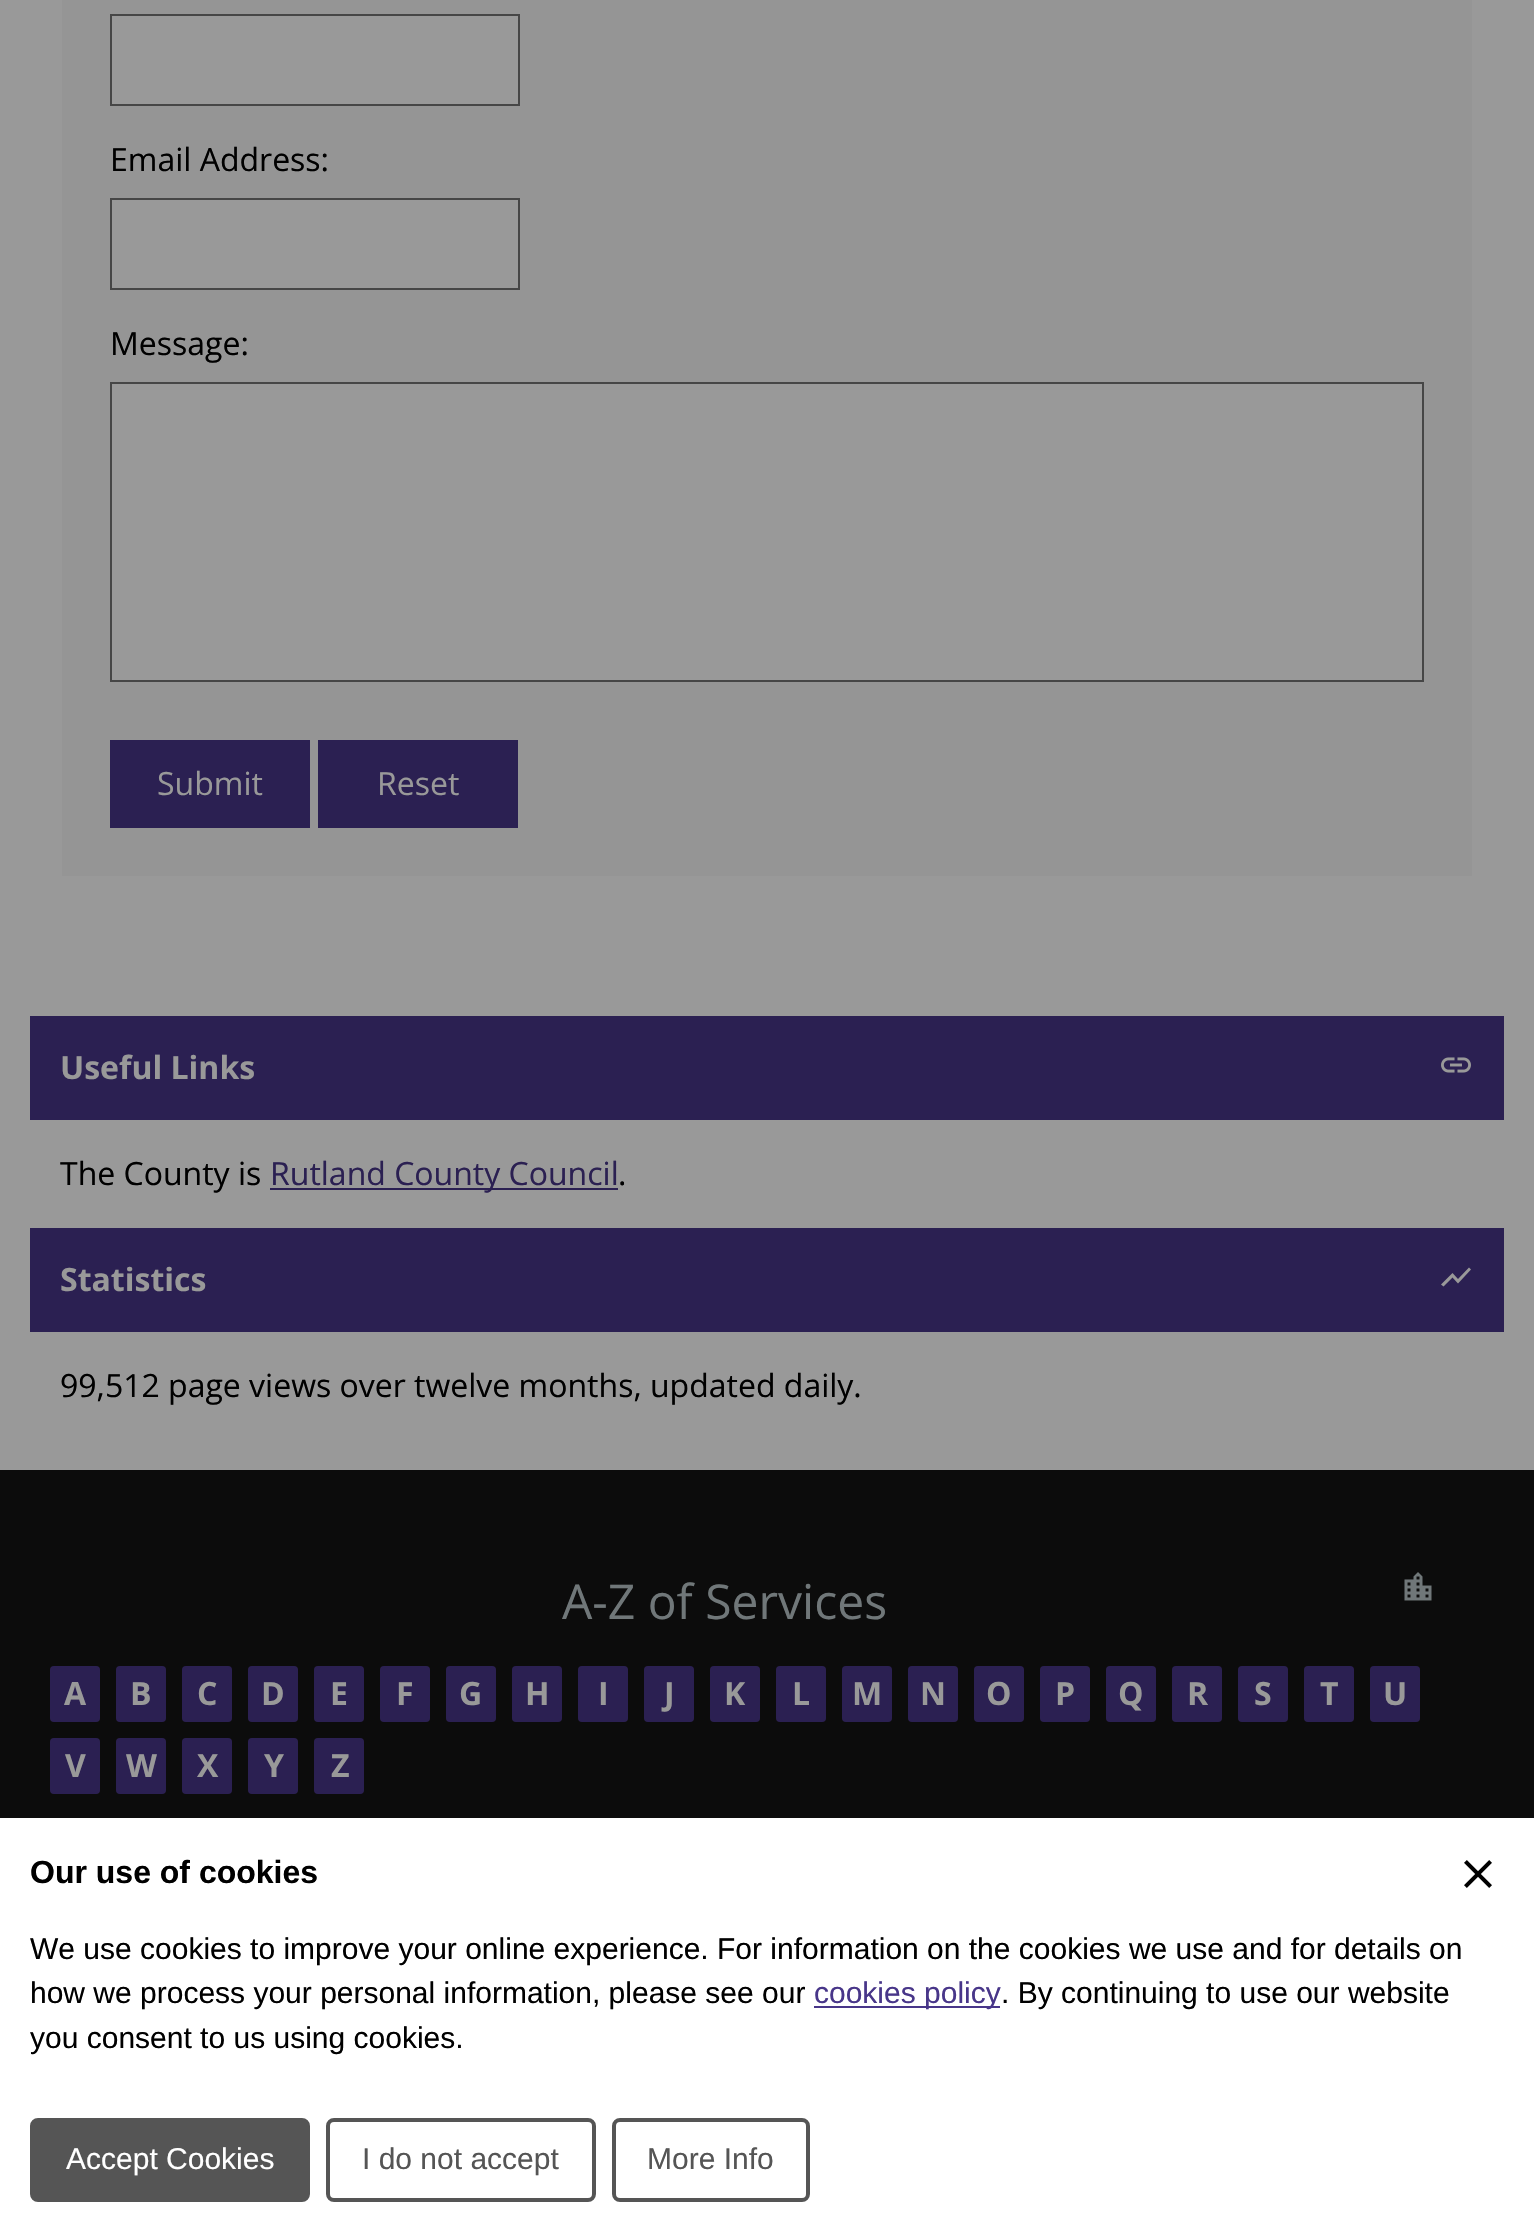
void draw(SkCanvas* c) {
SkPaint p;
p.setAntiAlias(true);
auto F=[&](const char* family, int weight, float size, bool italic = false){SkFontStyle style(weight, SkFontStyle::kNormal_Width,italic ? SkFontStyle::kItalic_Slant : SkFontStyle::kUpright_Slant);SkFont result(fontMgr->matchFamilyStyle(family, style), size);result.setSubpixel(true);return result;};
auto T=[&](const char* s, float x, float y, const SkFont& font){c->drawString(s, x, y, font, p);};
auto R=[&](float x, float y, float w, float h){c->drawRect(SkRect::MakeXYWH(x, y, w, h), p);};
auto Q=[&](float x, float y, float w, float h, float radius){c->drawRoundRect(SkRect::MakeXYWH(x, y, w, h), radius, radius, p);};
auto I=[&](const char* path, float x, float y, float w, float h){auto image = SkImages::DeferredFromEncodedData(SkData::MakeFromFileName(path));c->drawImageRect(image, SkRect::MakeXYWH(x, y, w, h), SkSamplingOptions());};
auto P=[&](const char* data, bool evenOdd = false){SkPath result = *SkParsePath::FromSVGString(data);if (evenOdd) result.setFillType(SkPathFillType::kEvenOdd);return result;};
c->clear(0xff999999);
p.setColor(0xff959595);
R(62,0,1410,876);
p.setColor(0xff999999);
c->drawRect(SkRect::MakeXYWH(111,15,408,90),p);
p.setStroke(true);
p.setStrokeWidth(2);
p.setColor(0xff464646);
c->drawRect(SkRect::MakeXYWH(111,15,408,90),p);
auto f1 = F("Open Sans",400,32);
p.setStroke(false);
p.setColor(0xff000000);
T("Email Address:",110,171,f1);
p.setColor(0xff999999);
c->drawRect(SkRect::MakeXYWH(111,199,408,90),p);
p.setStroke(true);
p.setColor(0xff464646);
c->drawRect(SkRect::MakeXYWH(111,199,408,90),p);
p.setStroke(false);
p.setColor(0xff000000);
T("Message:",110,355,f1);
p.setColor(0xff999999);
c->drawRect(SkRect::MakeXYWH(111,383,1312,298),p);
p.setStroke(true);
p.setColor(0xff464646);
c->drawRect(SkRect::MakeXYWH(111,383,1312,298),p);
p.setStroke(false);
p.setColor(0xff2b2052);
R(110,740,200,88);
p.setColor(0xff999999);
T("Submit",157,795,f1);
p.setColor(0xff2b2052);
R(318,740,200,88);
p.setColor(0xff999999);
T("Reset",377,795,f1);
p.setColor(0xff2b2052);
R(30,1016,1474,104);
auto f2 = F("Open Sans",700,32);
p.setColor(0xff999999);
T("Useful Links",60,1079,f2);
I("1.png",1441,1057,30,16);
p.setColor(0xff000000);
T("The County is",60,1185,f1);
p.setColor(0xff2b2052);
R(270,1188,348,2);
T("Rutland County Council",270,1185,f1);
p.setColor(0xff000000);
T(".",618,1185,f1);
p.setColor(0xff2b2052);
R(30,1228,1474,104);
p.setColor(0xff999999);
T("Statistics",60,1291,f2);
c->drawPath(P("M1443.5 1286.5l-2.5-2l11.5-11.5l5.5 6l11-11.5l2 2l-13 14l-5.5-6z"),p);
p.setColor(0xff000000);
T("99,512 page views over twelve months, updated daily.",60,1397,f1);
p.setColor(0xff0c0c0c);
R(0,1470,1534,348);
auto f3 = F("Open Sans",400,48);
p.setColor(0xff707779);
T("A-Z of Services",562,1619,f3);
I("2.png",1404,1572,28,29);
p.setColor(0xff2b2052);
Q(50,1666,50,56,4);
p.setColor(0xff999999);
T("A",64,1705,f2);
p.setColor(0xff2b2052);
Q(116,1666,50,56,4);
p.setColor(0xff999999);
T("B",130,1705,f2);
p.setColor(0xff2b2052);
Q(182,1666,50,56,4);
p.setColor(0xff999999);
T("C",197,1705,f2);
p.setColor(0xff2b2052);
Q(248,1666,50,56,4);
p.setColor(0xff999999);
T("D",261,1705,f2);
p.setColor(0xff2b2052);
Q(314,1666,50,56,4);
p.setColor(0xff999999);
T("E",330,1705,f2);
p.setColor(0xff2b2052);
Q(380,1666,50,56,4);
p.setColor(0xff999999);
T("F",396,1705,f2);
p.setColor(0xff2b2052);
Q(446,1666,50,56,4);
p.setColor(0xff999999);
T("G",459,1705,f2);
p.setColor(0xff2b2052);
Q(512,1666,50,56,4);
p.setColor(0xff999999);
T("H",525,1705,f2);
p.setColor(0xff2b2052);
Q(578,1666,50,56,4);
p.setColor(0xff999999);
T("I",598,1705,f2);
p.setColor(0xff2b2052);
Q(644,1666,50,56,4);
p.setColor(0xff999999);
T("J",664,1705,f2);
p.setColor(0xff2b2052);
Q(710,1666,50,56,4);
p.setColor(0xff999999);
T("K",724,1705,f2);
p.setColor(0xff2b2052);
Q(776,1666,50,56,4);
p.setColor(0xff999999);
T("L",792,1705,f2);
p.setColor(0xff2b2052);
Q(842,1666,50,56,4);
p.setColor(0xff999999);
T("M",852,1705,f2);
p.setColor(0xff2b2052);
Q(908,1666,50,56,4);
p.setColor(0xff999999);
T("N",920,1705,f2);
p.setColor(0xff2b2052);
Q(974,1666,50,56,4);
p.setColor(0xff999999);
T("O",986,1705,f2);
p.setColor(0xff2b2052);
Q(1040,1666,50,56,4);
p.setColor(0xff999999);
T("P",1055,1705,f2);
p.setColor(0xff2b2052);
Q(1106,1666,50,56,4);
p.setColor(0xff999999);
T("Q",1118,1705,f2);
p.setColor(0xff2b2052);
Q(1172,1666,50,56,4);
p.setColor(0xff999999);
T("R",1187,1705,f2);
p.setColor(0xff2b2052);
Q(1238,1666,50,56,4);
p.setColor(0xff999999);
T("S",1254,1705,f2);
p.setColor(0xff2b2052);
Q(1304,1666,50,56,4);
p.setColor(0xff999999);
T("T",1320,1705,f2);
p.setColor(0xff2b2052);
Q(1370,1666,50,56,4);
p.setColor(0xff999999);
T("U",1383,1705,f2);
p.setColor(0xff2b2052);
Q(50,1738,50,56,4);
p.setColor(0xff999999);
T("V",65,1777,f2);
p.setColor(0xff2b2052);
Q(116,1738,50,56,4);
p.setColor(0xff999999);
T("W",126,1777,f2);
p.setColor(0xff2b2052);
Q(182,1738,50,56,4);
p.setColor(0xff999999);
T("X",197,1777,f2);
p.setColor(0xff2b2052);
Q(248,1738,50,56,4);
p.setColor(0xff999999);
T("Y",264,1777,f2);
p.setColor(0xff2b2052);
Q(314,1738,50,56,4);
p.setColor(0xff999999);
T("Z",331,1777,f2);
p.setColor(0xffffffff);
R(0,1818,1534,422);
auto f4 = F("Liberation Sans",700,32);
p.setColor(0xff000000);
T("Our use of cookies",30,1883,f4);
I("3.png",1464,1860,28,28);
auto f5 = F("Liberation Sans",400,30);
T("We use cookies to improve your online experience. For information on the cookies we use and for details on",30,1959,f5);
T("how we process your personal information, please see our",30,2003,f5);
p.setColor(0xff483689);
R(814,2006,186,2);
T("cookies policy",814,2003,f5);
p.setColor(0xff000000);
T(". By continuing to use our website",1001,2003,f5);
T("you consent to us using cookies.",30,2048,f5);
p.setColor(0xff555555);
c->drawRoundRect(SkRect::MakeXYWH(32,2120,276,80),6,6,p);
p.setStroke(true);
p.setStrokeWidth(4);
c->drawRoundRect(SkRect::MakeXYWH(32,2120,276,80),6,6,p);
p.setStroke(false);
p.setColor(0xffffffff);
T("Accept Cookies",66,2169,f5);
p.setStroke(true);
p.setColor(0xff555555);
c->drawRoundRect(SkRect::MakeXYWH(328,2120,266,80),6,6,p);
p.setStroke(false);
T("I do not accept",362,2169,f5);
p.setStroke(true);
c->drawRoundRect(SkRect::MakeXYWH(614,2120,194,80),6,6,p);
p.setStroke(false);
T("More Info",647,2169,f5);
}
